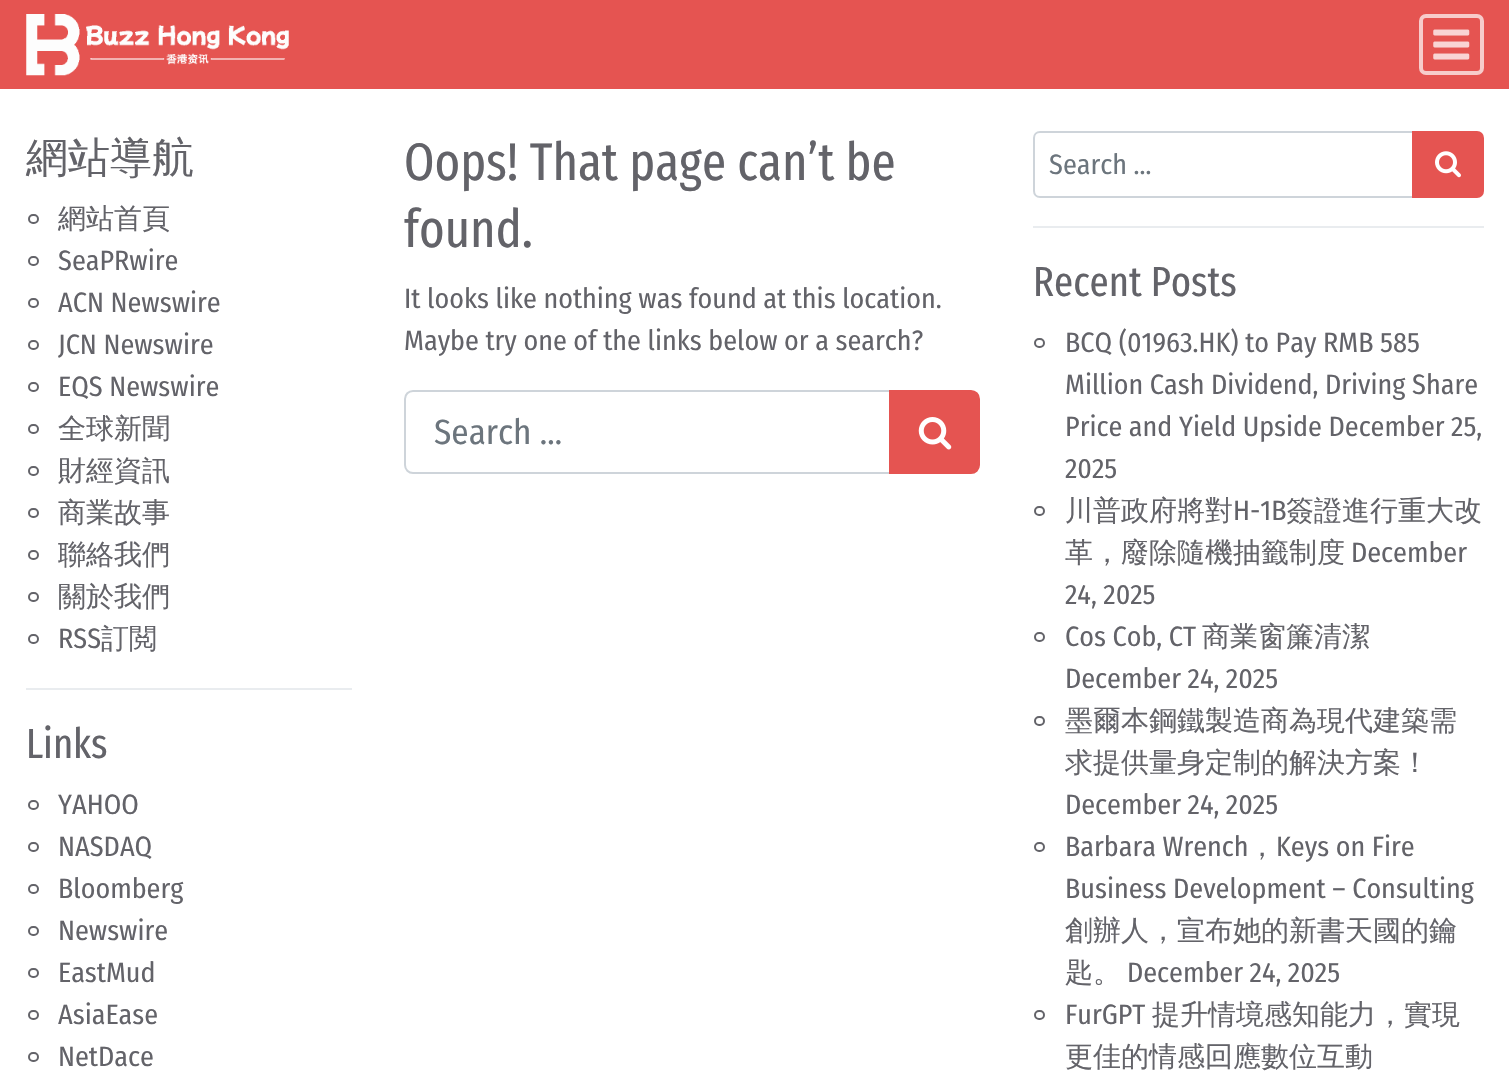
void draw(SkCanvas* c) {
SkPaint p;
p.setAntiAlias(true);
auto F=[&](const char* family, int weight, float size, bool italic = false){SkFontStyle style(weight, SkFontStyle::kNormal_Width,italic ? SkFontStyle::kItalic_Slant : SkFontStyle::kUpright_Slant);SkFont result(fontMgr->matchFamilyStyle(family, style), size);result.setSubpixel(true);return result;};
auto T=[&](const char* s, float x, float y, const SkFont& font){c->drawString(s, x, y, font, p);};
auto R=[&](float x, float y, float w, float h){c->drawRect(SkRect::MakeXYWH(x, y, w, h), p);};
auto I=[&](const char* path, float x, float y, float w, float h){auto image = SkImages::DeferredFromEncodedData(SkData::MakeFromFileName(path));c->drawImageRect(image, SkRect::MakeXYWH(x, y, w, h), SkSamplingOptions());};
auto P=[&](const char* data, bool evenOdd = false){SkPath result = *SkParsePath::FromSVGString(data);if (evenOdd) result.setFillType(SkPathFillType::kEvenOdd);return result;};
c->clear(0xffffffff);
p.setColor(0xffe55451);
R(0,0,1509,89);
I("1.png",26,14,263,62);
p.setStroke(true);
p.setStrokeWidth(4);
p.setColor(0xfff7cccb);
c->drawRoundRect(SkRect::MakeXYWH(1421,16,61,57),5,5,p);
I("2.png",1433,29,37,31);
p.setStroke(false);
p.setColor(0xffe9ecef);
R(26,688,326,2);
auto f1 = F("WenQuanYi Zen Hei",500,42);
p.setColor(0xff636369);
T("網站導航",26,172,f1);
p.setStroke(true);
p.setStrokeWidth(2);
c->drawRoundRect(SkRect::MakeXYWH(29,215,9,8),4,4,p);
auto f2 = F("WenQuanYi Zen Hei",500,28);
p.setStroke(false);
T("網站首頁",58,228,f2);
p.setStroke(true);
c->drawRoundRect(SkRect::MakeXYWH(29,257,9,8),4,4,p);
auto f3 = F("Fira Sans Condensed",400,28);
p.setStroke(false);
T("SeaPRwire",58,270,f3);
p.setStroke(true);
c->drawRoundRect(SkRect::MakeXYWH(29,299,9,8),4,4,p);
p.setStroke(false);
T("ACN Newswire",58,312,f3);
p.setStroke(true);
c->drawRoundRect(SkRect::MakeXYWH(29,341,9,8),4,4,p);
p.setStroke(false);
T("JCN Newswire",58,354,f3);
p.setStroke(true);
c->drawRoundRect(SkRect::MakeXYWH(29,383,9,8),4,4,p);
p.setStroke(false);
T("EQS Newswire",58,396,f3);
p.setStroke(true);
c->drawRoundRect(SkRect::MakeXYWH(29,425,9,8),4,4,p);
p.setStroke(false);
T("全球新聞",58,438,f2);
p.setStroke(true);
c->drawRoundRect(SkRect::MakeXYWH(29,467,9,8),4,4,p);
p.setStroke(false);
T("財經資訊",58,480,f2);
p.setStroke(true);
c->drawRoundRect(SkRect::MakeXYWH(29,509,9,8),4,4,p);
p.setStroke(false);
T("商業故事",58,522,f2);
p.setStroke(true);
c->drawRoundRect(SkRect::MakeXYWH(29,551,9,8),4,4,p);
p.setStroke(false);
T("聯絡我們",58,564,f2);
p.setStroke(true);
c->drawRoundRect(SkRect::MakeXYWH(29,593,9,8),4,4,p);
p.setStroke(false);
T("關於我們",58,606,f2);
p.setStroke(true);
c->drawRoundRect(SkRect::MakeXYWH(29,635,9,8),4,4,p);
p.setStroke(false);
T("RSS",58,648,f3);
T("訂閲",101,648,f2);
auto f4 = F("Fira Sans Extra Condensed",400,42);
T("Links",26,758,f4);
p.setStroke(true);
c->drawRoundRect(SkRect::MakeXYWH(29,801,9,8),4,4,p);
p.setStroke(false);
T("YAHOO",58,814,f3);
p.setStroke(true);
c->drawRoundRect(SkRect::MakeXYWH(29,843,9,8),4,4,p);
p.setStroke(false);
T("NASDAQ",58,856,f3);
p.setStroke(true);
c->drawRoundRect(SkRect::MakeXYWH(29,885,9,8),4,4,p);
p.setStroke(false);
T("Bloomberg",58,898,f3);
p.setStroke(true);
c->drawRoundRect(SkRect::MakeXYWH(29,927,9,8),4,4,p);
p.setStroke(false);
T("Newswire",58,940,f3);
p.setStroke(true);
c->drawRoundRect(SkRect::MakeXYWH(29,969,9,8),4,4,p);
p.setStroke(false);
T("EastMud",58,982,f3);
p.setStroke(true);
c->drawRoundRect(SkRect::MakeXYWH(29,1011,9,8),4,4,p);
p.setStroke(false);
T("AsiaEase",58,1024,f3);
p.setStroke(true);
c->drawRoundRect(SkRect::MakeXYWH(29,1053,9,8),4,4,p);
p.setStroke(false);
T("NetDace",58,1066,f3);
auto f5 = F("Fira Sans Extra Condensed",400,53);
T("Oops! That page can’t be",404,180,f5);
T("found.",404,247,f5);
T("It looks like nothing was found at this location.",404,308,f3);
T("Maybe try one of the links below or a search?",404,350,f3);
p.setStroke(true);
p.setColor(0xffced4da);
c->drawPath(P("M413 391h477v82h-477c-4.5 0-8-3.5-8-8v-66c0-4.5 3.5-8 8-8z"),p);
auto f6 = F("Fira Sans Condensed",400,35);
p.setStroke(false);
p.setColor(0xff6c757d);
T("Search …",434,444,f6);
p.setColor(0xffe55451);
c->drawPath(P("M890 391h81c4.5 0 8 3.5 8 8v66c0 4.5-3.5 8-8 8h-81z"),p);
p.setStroke(true);
c->drawPath(P("M890 391h81c4.5 0 8 3.5 8 8v66c0 4.5-3.5 8-8 8h-81z"),p);
I("3.png",918,417,34,33);
p.setStroke(false);
p.setColor(0xffe9ecef);
R(1033,226,451,2);
p.setStroke(true);
p.setColor(0xffced4da);
c->drawPath(P("M1040 132h373v65h-373c-3.5 0-6-2.5-6-6v-53c0-3.5 2.5-6 6-6z"),p);
p.setStroke(false);
p.setColor(0xff6c757d);
T("Search …",1049,174,f3);
p.setColor(0xffe55451);
c->drawPath(P("M1413 132h64c3.5 0 6 2.5 6 6v53c0 3.5-2.5 6-6 6h-64z"),p);
p.setStroke(true);
c->drawPath(P("M1413 132h64c3.5 0 6 2.5 6 6v53c0 3.5-2.5 6-6 6h-64z"),p);
I("4.png",1435,151,26,27);
p.setStroke(false);
p.setColor(0xff636369);
T("Recent Posts",1033,296,f4);
p.setStroke(true);
c->drawRoundRect(SkRect::MakeXYWH(1035,339,9,8),4,4,p);
p.setStroke(false);
T("BCQ (01963.HK) to Pay RMB 585",1065,352,f3);
T("Million Cash Dividend, Driving Share",1065,394,f3);
T("Price and Yield Upside December 25,",1065,436,f3);
T("2025",1065,478,f3);
p.setStroke(true);
c->drawRoundRect(SkRect::MakeXYWH(1035,507,9,8),4,4,p);
p.setStroke(false);
T("川普政府將對",1065,520,f2);
T("H-1B",1233,520,f3);
T("簽證進行重大改",1286,520,f2);
T("革，廢除隨機抽籤制度",1065,562,f2);
T("December",1351,562,f3);
T("24, 2025",1065,604,f3);
p.setStroke(true);
c->drawRoundRect(SkRect::MakeXYWH(1035,633,9,8),4,4,p);
p.setStroke(false);
T("Cos Cob, CT",1065,646,f3);
T("商業窗簾清潔",1202,646,f2);
T("December 24, 2025",1065,688,f3);
p.setStroke(true);
c->drawRoundRect(SkRect::MakeXYWH(1035,717,9,8),4,4,p);
p.setStroke(false);
T("墨爾本鋼鐵製造商為現代建築需",1065,730,f2);
T("求提供量身定制的解決方案！",1065,772,f2);
T("December 24, 2025",1065,814,f3);
p.setStroke(true);
c->drawRoundRect(SkRect::MakeXYWH(1035,843,9,8),4,4,p);
p.setStroke(false);
T("Barbara Wrench",1065,856,f3);
T("Keys on Fire",1276,856,f3);
T("，",1248,856,f2);
T("Business Development – Consulting",1065,898,f3);
T("創辦人，宣布她的新書天國的鑰",1065,940,f2);
T("匙。",1065,982,f2);
T("December 24, 2025",1127,982,f3);
p.setStroke(true);
c->drawRoundRect(SkRect::MakeXYWH(1035,1011,9,8),4,4,p);
p.setStroke(false);
T("FurGPT",1065,1024,f3);
T("提升情境感知能力，實現",1152,1024,f2);
T("更佳的情感回應數位互動",1065,1066,f2);
}
